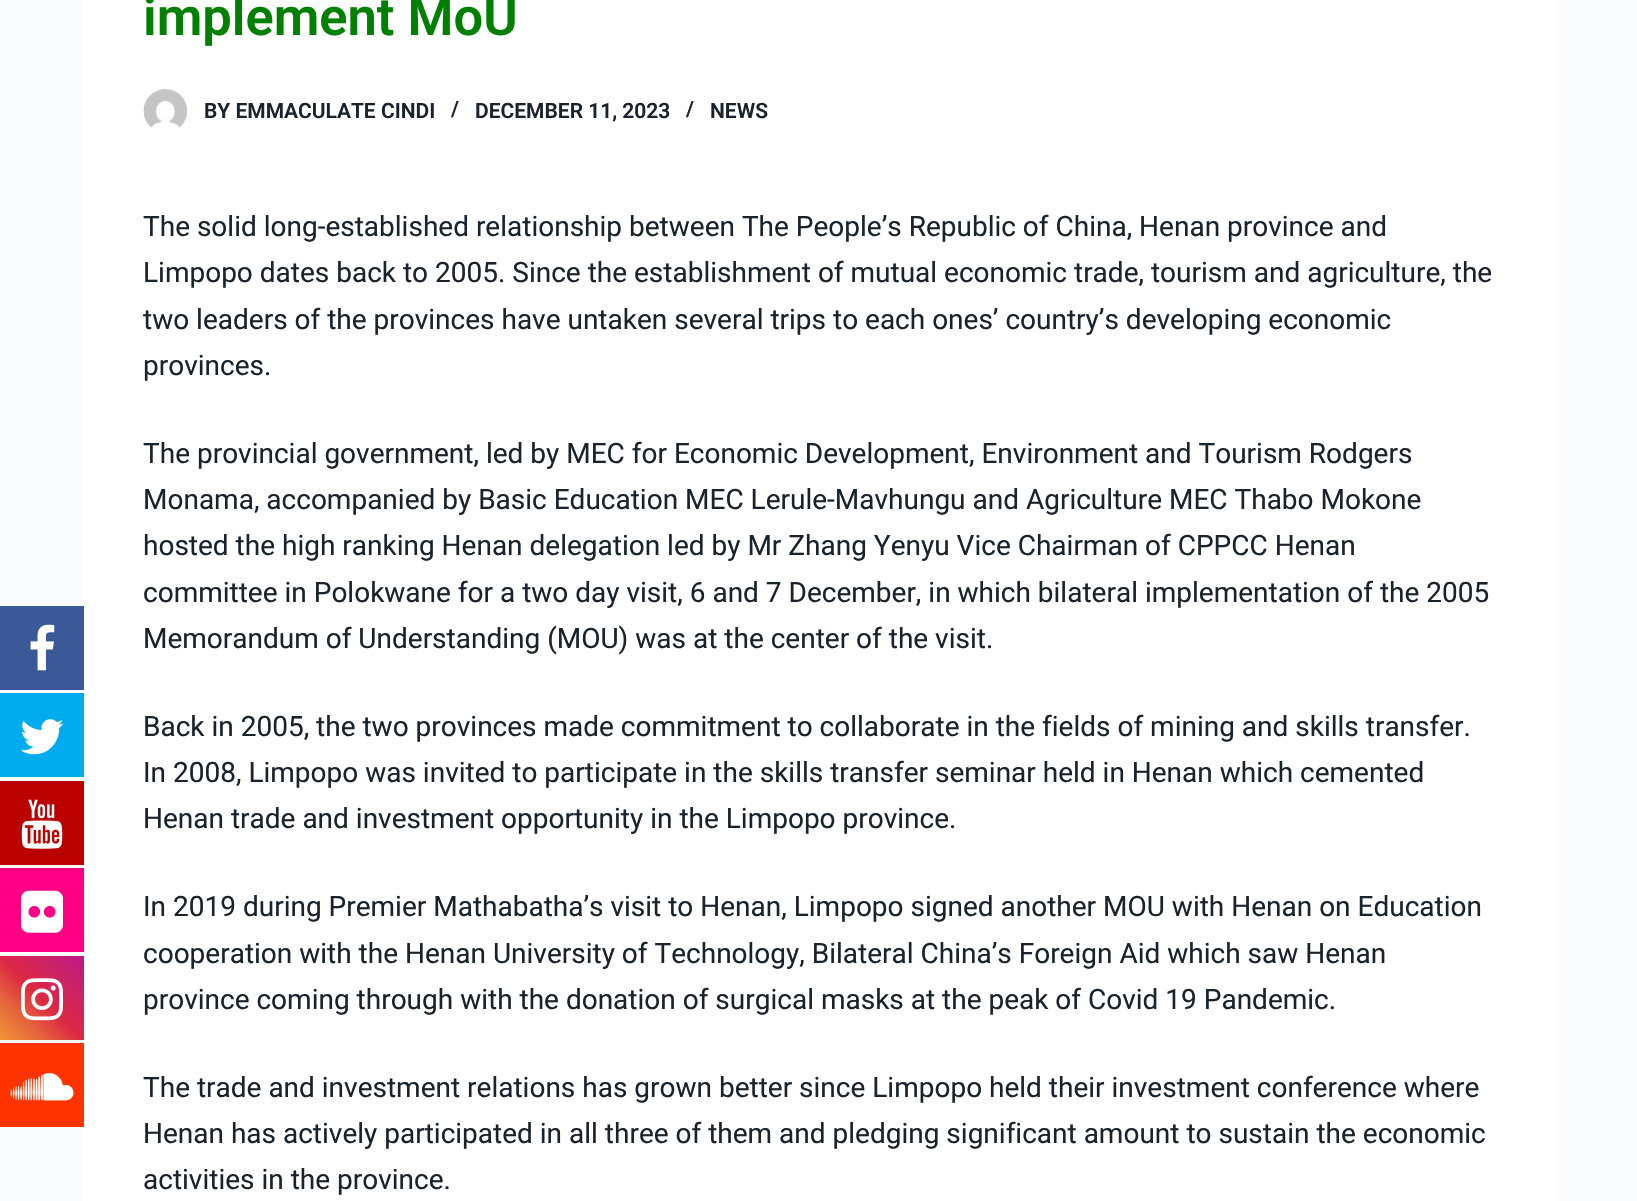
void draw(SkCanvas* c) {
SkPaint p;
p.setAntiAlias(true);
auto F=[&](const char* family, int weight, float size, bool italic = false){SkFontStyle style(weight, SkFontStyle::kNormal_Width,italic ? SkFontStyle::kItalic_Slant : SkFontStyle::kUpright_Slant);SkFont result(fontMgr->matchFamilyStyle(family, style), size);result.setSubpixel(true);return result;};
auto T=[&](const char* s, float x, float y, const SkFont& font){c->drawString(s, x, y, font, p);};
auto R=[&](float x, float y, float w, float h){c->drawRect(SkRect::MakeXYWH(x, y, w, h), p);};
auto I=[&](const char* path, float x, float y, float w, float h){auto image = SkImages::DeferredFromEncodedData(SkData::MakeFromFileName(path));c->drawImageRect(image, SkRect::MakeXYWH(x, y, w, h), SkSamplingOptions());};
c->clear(0xfffafbfc);
p.setColor(0xffffffff);
R(82,0,1474,1201);
p.setColor(0xff3b5998);
R(0,606,84,84);
I("1.png",30,624,25,47);
p.setColor(0xff00aced);
R(0,693,84,84);
I("2.png",20,719,44,36);
p.setColor(0xffbb0000);
R(0,781,84,84);
I("3.png",21,799,42,50);
p.setColor(0xffff0084);
R(0,868,84,84);
I("4.png",21,890,42,43);
{
const SkColor colors[] = {0xfff09433,0xffe6683c,0xffdc2743,0xffcc2366,0xffbc1888};
const float stops[] = {0,.25,.5,.75,1};
const SkPoint ends[] = {{0,1040}, {84,956}};
p.setShader(SkGradientShader::MakeLinear(ends, colors, stops, 5, SkTileMode::kClamp));
p.setAlpha(255);
}
R(0,956,84,84);
I("5.png",21,978,42,43);
p.setShader(nullptr);
p.setColor(0xffff3300);
R(0,1043,84,84);
I("6.png",10,1073,64,28);
auto f1 = F("Roboto",600,52.5);
p.setColor(0xff008000);
T("implement MoU",143,35,f1);
I("7.png",143,89,44,41);
auto f2 = F("Roboto",600,21);
p.setColor(0xff1a232b);
T("BY EMMACULATE CINDI",204,118,f2);
T("/",451,116,f2);
T("DECEMBER 11, 2023",475,118,f2);
T("/",686,116,f2);
T("NEWS",710,118,f2);
auto f3 = F("Roboto",400,28);
T("The solid long-established relationship between The People’s Republic of China, Henan province and",143,236,f3);
T("Limpopo dates back to 2005. Since the establishment of mutual economic trade, tourism and agriculture, the",143,282,f3);
T("two leaders of the provinces have untaken several trips to each ones’ country’s developing economic",143,329,f3);
T("provinces.",143,375,f3);
T("The provincial government, led by MEC for Economic Development, Environment and Tourism Rodgers",143,463,f3);
T("Monama, accompanied by Basic Education MEC Lerule-Mavhungu and Agriculture MEC Thabo Mokone",143,509,f3);
T("hosted the high ranking Henan delegation led by Mr Zhang Yenyu Vice Chairman of CPPCC Henan",143,555,f3);
T("committee in Polokwane for a two day visit, 6 and 7 December, in which bilateral implementation of the 2005",143,602,f3);
T("Memorandum of Understanding (MOU) was at the center of the visit.",143,648,f3);
T("Back in 2005, the two provinces made commitment to collaborate in the fields of mining and skills transfer.",143,736,f3);
T("In 2008, Limpopo was invited to participate in the skills transfer seminar held in Henan which cemented",143,782,f3);
T("Henan trade and investment opportunity in the Limpopo province.",143,828,f3);
T("In 2019 during Premier Mathabatha’s visit to Henan, Limpopo signed another MOU with Henan on Education",143,916,f3);
T("cooperation with the Henan University of Technology, Bilateral China’s Foreign Aid which saw Henan",143,963,f3);
T("province coming through with the donation of surgical masks at the peak of Covid 19 Pandemic.",143,1009,f3);
T("The trade and investment relations has grown better since Limpopo held their investment conference where",143,1097,f3);
T("Henan has actively participated in all three of them and pledging significant amount to sustain the economic",143,1143,f3);
T("activities in the province.",143,1189,f3);
}
